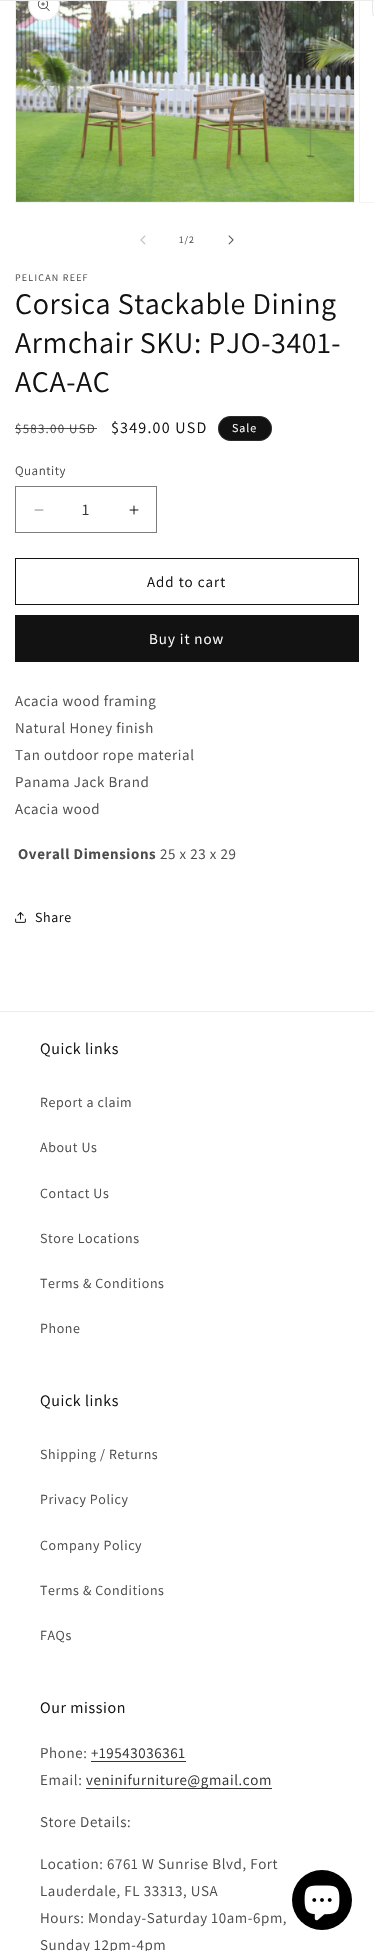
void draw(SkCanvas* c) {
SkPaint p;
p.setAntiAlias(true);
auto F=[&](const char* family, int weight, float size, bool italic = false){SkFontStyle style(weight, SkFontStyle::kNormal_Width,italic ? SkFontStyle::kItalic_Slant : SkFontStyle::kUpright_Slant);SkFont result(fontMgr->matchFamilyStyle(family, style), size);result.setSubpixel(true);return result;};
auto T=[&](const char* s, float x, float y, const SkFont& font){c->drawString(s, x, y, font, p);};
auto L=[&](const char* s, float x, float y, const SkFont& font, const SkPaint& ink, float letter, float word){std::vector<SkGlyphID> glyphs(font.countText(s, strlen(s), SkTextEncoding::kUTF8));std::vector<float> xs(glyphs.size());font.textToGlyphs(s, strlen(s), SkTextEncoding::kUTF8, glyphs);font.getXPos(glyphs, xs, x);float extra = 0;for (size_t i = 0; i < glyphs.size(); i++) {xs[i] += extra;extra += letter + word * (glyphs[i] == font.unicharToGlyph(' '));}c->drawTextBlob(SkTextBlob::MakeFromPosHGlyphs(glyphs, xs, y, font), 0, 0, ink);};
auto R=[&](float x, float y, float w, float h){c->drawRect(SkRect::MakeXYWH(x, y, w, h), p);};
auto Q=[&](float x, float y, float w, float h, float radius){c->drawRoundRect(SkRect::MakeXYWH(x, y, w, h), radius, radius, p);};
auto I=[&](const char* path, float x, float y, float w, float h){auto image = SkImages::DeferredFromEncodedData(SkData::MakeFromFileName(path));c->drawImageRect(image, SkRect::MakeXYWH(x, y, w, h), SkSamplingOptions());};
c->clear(0xffffffff);
p.setStroke(true);
p.setStrokeWidth(1);
p.setColor(0xfff3f3f3);
c->drawRect(SkRect::MakeXYWH(15.5,-.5,339,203),p);
I("2.png",16,1,338,201);
p.setStroke(false);
p.setColor(0xffffffff);
c->drawCircle(44,5,16,p);
p.setStroke(true);
p.setColor(0x1a121212);
c->drawCircle(44,5,15.5,p);
p.setColor(0xfff3f3f3);
c->drawRect(SkRect::MakeXYWH(359.5,-.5,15,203),p);
p.setColor(0xffe7e7e7);
c->drawRoundRect(SkRect::MakeXYWH(372.5,-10.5,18,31),15.5,15.5,p);
p.setStroke(false);
p.setColor(0xffececec);
R(0,0,374,1);
I("1.png",38,1,12,10);
I("3.png",140,235,6,10);
auto f1 = F("Assistant",400,10);
p.setColor(0xff4d4d4d);
L("1/2",179,243,f1,p,1,0);
I("4.png",228,235,6,10);
L("PELICAN REEF",15,281,f1,p,1.25,0);
auto f2 = F("Assistant",400,30);
p.setColor(0xff121212);
L("Corsica Stackable Dining",15,314,f2,p,.6,0);
L("Armchair SKU: PJO-3401-",15,353,f2,p,.6,0);
L("ACA-AC",15,392,f2,p,.6,0);
auto f3 = F("Assistant",400,13);
p.setColor(0xff4d4d4d);
L("$583.00 USD",15,433,f3,p,1.25,0);
p.setColor(0xbf121212);
R(15,428,82,1);
auto f4 = F("Assistant",400,16);
p.setColor(0xff121212);
L("$349.00 USD",111,433,f4,p,1.25,0);
Q(218,416,54,25,12.5);
p.setStroke(true);
p.setColor(0x1affffff);
c->drawRoundRect(SkRect::MakeXYWH(218.5,416.5,53,24),12,12,p);
auto f5 = F("Assistant",400,12);
p.setStroke(false);
p.setColor(0xffffffff);
L("Sale",232,432,f5,p,1,0);
p.setColor(0xff4d4d4d);
L("Quantity",15,475,f3,p,.5,0);
I("5.png",34,509,10,2);
I("6.png",129,505,10,10);
p.setStroke(true);
p.setColor(0xff7d7d7d);
c->drawRect(SkRect::MakeXYWH(15.5,486.5,141,46),p);
p.setStroke(false);
p.setColor(0xff363636);
T("1",82,515,f4);
p.setStroke(true);
p.setColor(0xff121212);
c->drawRect(SkRect::MakeXYWH(15.5,558.5,343,46),p);
auto f6 = F("Assistant",400,15);
p.setStroke(false);
L("Add to cart",147,587,f6,p,1,0);
R(15,615,344,47);
p.setColor(0xffffffff);
L("Buy it now",149,644,f6,p,1,0);
p.setColor(0xff4d4d4d);
L("Acacia wood framing",15,706,f6,p,.6,0);
L("Natural Honey finish",15,733,f6,p,.6,0);
L("Tan outdoor rope material",15,760,f6,p,.6,0);
L("Panama Jack Brand",15,787,f6,p,.6,0);
L("Acacia wood",15,814,f6,p,.6,0);
auto f7 = F("Assistant",700,15);
L("Overall Dimensions",18,859,f7,p,.6,0);
L("25 x 23 x 29",160,859,f6,p,.6,0);
I("7.png",15,912,11,11);
auto f8 = F("Assistant",400,14);
p.setColor(0xff121212);
L("Share",35,922,f8,p,.6,0);
p.setColor(0xffececec);
R(0,1011,374,1);
p.setColor(0xff121212);
L("Quick links",40,1054,f4,p,.6,0);
p.setColor(0xff4d4d4d);
L("Report a claim",40,1107,f8,p,.6,0);
L("About Us",40,1152,f8,p,.6,0);
L("Contact Us",40,1198,f8,p,.6,0);
L("Store Locations",40,1243,f8,p,.6,0);
L("Terms & Conditions",40,1288,f8,p,.6,0);
L("Phone",40,1333,f8,p,.6,0);
p.setColor(0xff121212);
L("Quick links",40,1406,f4,p,.6,0);
p.setColor(0xff4d4d4d);
L("Shipping / Returns",40,1459,f8,p,.6,0);
L("Privacy Policy",40,1504,f8,p,.6,0);
L("Company Policy",40,1550,f8,p,.6,0);
L("Terms & Conditions",40,1595,f8,p,.6,0);
L("FAQs",40,1640,f8,p,.6,0);
p.setColor(0xff121212);
L("Our mission",40,1713,f4,p,.6,0);
p.setColor(0xff4d4d4d);
L("Phone:",40,1758,f6,p,.6,0);
p.setColor(0xff363636);
L("+19543036361",91,1758,f6,p,.6,0);
R(91,1761,95,1);
p.setColor(0xff4d4d4d);
L("Email:",40,1785,f6,p,.6,0);
p.setColor(0xff363636);
R(86,1788,186,1);
L("veninifurniture@gmail.com",86,1785,f6,p,.6,0);
p.setColor(0xff4d4d4d);
L("Store Details:",40,1827,f6,p,.6,0);
L("Location: 6761 W Sunrise Blvd, Fort",40,1869,f6,p,.6,0);
L("Lauderdale, FL 33313, USA",40,1896,f6,p,.6,0);
L("Hours: Monday-Saturday 10am-6pm,",40,1923,f6,p,.6,0);
L("Sunday 12pm-4pm",40,1950,f6,p,.6,0);
p.setColor(0xff000000);
c->drawCircle(322,1900,30,p);
I("8.png",304,1885,36,36);
}
